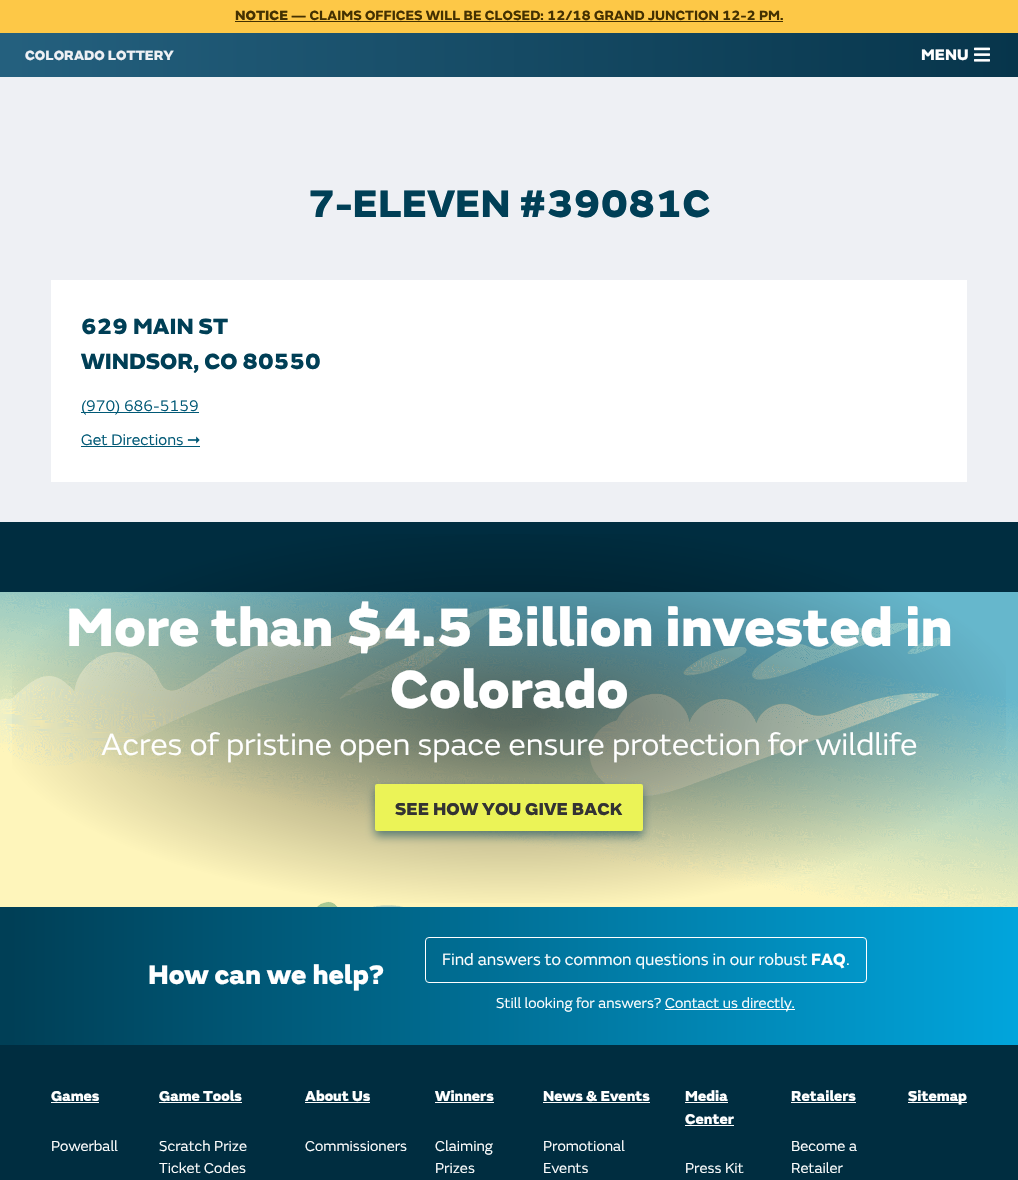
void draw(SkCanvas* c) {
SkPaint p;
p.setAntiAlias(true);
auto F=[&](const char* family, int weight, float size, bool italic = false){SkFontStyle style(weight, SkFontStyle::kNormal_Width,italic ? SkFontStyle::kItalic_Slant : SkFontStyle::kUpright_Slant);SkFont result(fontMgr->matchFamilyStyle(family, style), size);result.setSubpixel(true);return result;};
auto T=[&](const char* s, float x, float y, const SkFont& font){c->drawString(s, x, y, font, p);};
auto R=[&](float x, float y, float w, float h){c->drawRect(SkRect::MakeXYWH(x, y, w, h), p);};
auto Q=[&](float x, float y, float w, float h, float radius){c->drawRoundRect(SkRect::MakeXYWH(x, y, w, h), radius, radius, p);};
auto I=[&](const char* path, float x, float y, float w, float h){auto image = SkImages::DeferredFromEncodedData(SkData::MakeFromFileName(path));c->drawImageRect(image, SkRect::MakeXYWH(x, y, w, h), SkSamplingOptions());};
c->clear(0xffffffff);
{
const SkColor colors[] = {0xffeef0f4,0xffeef0f4,0xffdfe2ea,0xffdfe2ea,0xffeef0f4,0xffeef0f4,0xffdfe2ea,0xffdfe2ea,0xffeef0f4,0xffeef0f4,0xffdfe2ea,0xffdfe2ea,0xffeef0f4,0xffeef0f4,0xffdfe2ea,0xffdfe2ea,0xffeef0f4,0xffeef0f4,0xffdfe2ea,0xffdfe2ea,0xffeef0f4,0xffeef0f4,0xffdfe2ea,0xffdfe2ea,0xffeef0f4,0xffeef0f4,0xffdfe2ea,0xffdfe2ea,0xffeef0f4,0xffeef0f4,0xffdfe2ea,0xffdfe2ea,0xffeef0f4,0xffeef0f4,0xffdfe2ea,0xffdfe2ea,0xffeef0f4,0xffeef0f4,0xffdfe2ea,0xffdfe2ea,0xffeef0f4,0xffeef0f4,0xffdfe2ea,0xffdfe2ea};
const float stops[] = {0,.41,.41,.42,.42,.42,.42,.43,.43,.43,.43,.44,.44,.44,.44,.45,.45,.45,.45,.46,.46,.46,.46,.47,.47,.47,.47,.48,.48,.48,.48,.49,.49,.49,.49,.5,.5,.51,.51,.51,.51,.52,.52,1};
const SkPoint ends[] = {{677,-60}, {341,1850}};
p.setShader(SkGradientShader::MakeLinear(ends, colors, stops, 44, SkTileMode::kClamp));
p.setAlpha(255);
}
R(0,77,1018,445);
{
const SkColor colors[] = {0xff24607e,0xff07354b};
const float stops[] = {.01,1};
const SkPoint ends[] = {{0,0}, {1018,0}};
p.setShader(SkGradientShader::MakeLinear(ends, colors, stops, 2, SkTileMode::kClamp));
p.setAlpha(255);
}
R(0,33,1018,44);
p.setShader(nullptr);
p.setColor(0xfffdc847);
R(0,0,1018,33);
auto f1 = F("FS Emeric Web",900,14);
p.setColor(0xff443101);
T("NOTICE",235,20,f1);
R(235,21,548,1);
auto f2 = F("FS Emeric Web",700,14);
T("— CLAIMS OFFICES WILL BE CLOSED: 12/18 GRAND JUNCTION 12-2 PM.",291,20,f2);
p.setColor(0xffeef0f4);
T("COLORADO LOTTERY",25,60,f1);
auto f3 = F("FS Emeric Web",900,16);
p.setColor(0xffffffff);
T("MENU",921,60,f3);
I("1.png",974,47,16,15);
auto f4 = F("FS Emeric Web",900,40);
p.setColor(0xff003f56);
T("7-ELEVEN #39081C",308,217,f4);
p.setColor(0xffffffff);
R(51,280,916,202);
auto f5 = F("FS Emeric Web",900,23);
p.setColor(0xff003f56);
T("629 MAIN ST",81,334,f5);
T("WINDSOR, CO 80550",81,369,f5);
p.setColor(0xff015976);
R(81,412,118,1);
auto f6 = F("FS Emeric Web",400,16);
T("(970) 686-5159",81,411,f6);
T("Get Directions",81,445,f6);
R(81,446,119,1);
auto f7 = F("DejaVu Sans",400,16);
T("➞",187,445,f7);
p.setColor(0xff002d40);
R(0,522,1018,658);
I("2.png",0,592,1018,315);
I("3.png",317,901,21,6);
{
const SkColor colors[] = {0x80000000,0x80000000,0x00000000};
const float stops[] = {0,.04,.72};
SkMatrix m = SkMatrix::Translate(509,715).preScale(720,272);
p.setShader(SkGradientShader::MakeRadial({0, 0}, 1, colors, stops, 3, SkTileMode::kClamp, 0, &m));
p.setAlpha(255);
}
R(12,534,994,369);
I("4.png",373,905,30,2);
auto f8 = F("FS Emeric Web",900,56);
p.setShader(nullptr);
p.setColor(0xffffffff);
T("More than $4.5 Billion invested in",66,646,f8);
T("Colorado",390,708,f8);
auto f9 = F("FS Emeric Web",400,32);
T("Acres of pristine open space ensure protection for wildlife",101,755,f9);
p.setColor(0x8c003f56);
p.setMaskFilter(SkMaskFilter::MakeBlur(kNormal_SkBlurStyle, 5));
c->drawRoundRect(SkRect::MakeXYWH(375,789,268,47),2,2,p);
p.setMaskFilter(nullptr);
p.setColor(0xffebf357);
Q(375,784,268,47,2);
auto f10 = F("FS Emeric Web",900,18);
p.setColor(0xff333333);
T("SEE HOW YOU GIVE BACK",395,815,f10);
{
const SkColor colors[] = {0xff003f56,0xff01a5dc};
const float stops[] = {.01,1};
const SkPoint ends[] = {{0,907}, {1018,907}};
p.setShader(SkGradientShader::MakeLinear(ends, colors, stops, 2, SkTileMode::kClamp));
p.setAlpha(255);
}
R(0,907,1018,138);
auto f11 = F("FS Emeric Web",900,28);
p.setShader(nullptr);
p.setColor(0xffffffff);
T("How can we help?",148,984,f11);
p.setStroke(true);
p.setStrokeWidth(1);
c->drawRoundRect(SkRect::MakeXYWH(425.5,937.5,441,45),3.5,3.5,p);
auto f12 = F("FS Emeric Web",400,17);
p.setStroke(false);
T("Find answers to common questions in our robust",442,965,f12);
auto f13 = F("FS Emeric Web",700,17);
T("FAQ",811,965,f13);
T(".",846,965,f12);
auto f14 = F("FS Emeric Web",400,15);
T("Still looking for answers?",496,1008,f14);
R(665,1009,130,1);
T("Contact us directly.",665,1008,f14);
auto f15 = F("FS Emeric Web",900,15);
T("Games",51,1101,f15);
R(51,1102,48,1);
T("Powerball",51,1151,f14);
T("Game Tools",159,1101,f15);
R(159,1102,83,1);
T("Scratch Prize",159,1151,f14);
T("Ticket Codes",159,1173,f14);
T("About Us",305,1101,f15);
R(305,1102,65,1);
T("Commissioners",305,1151,f14);
T("Winners",435,1101,f15);
R(435,1102,59,1);
T("Claiming",435,1151,f14);
T("Prizes",435,1173,f14);
T("News & Events",543,1101,f15);
R(543,1102,107,1);
T("Promotional",543,1151,f14);
T("Events",543,1173,f14);
T("Media",685,1101,f15);
R(685,1102,43,1);
T("Center",685,1124,f15);
R(685,1125,49,1);
T("Press Kit",685,1173,f14);
T("Retailers",791,1101,f15);
R(791,1102,65,1);
T("Become a",791,1151,f14);
T("Retailer",791,1173,f14);
R(908,1102,59,1);
T("Sitemap",908,1101,f15);
}
